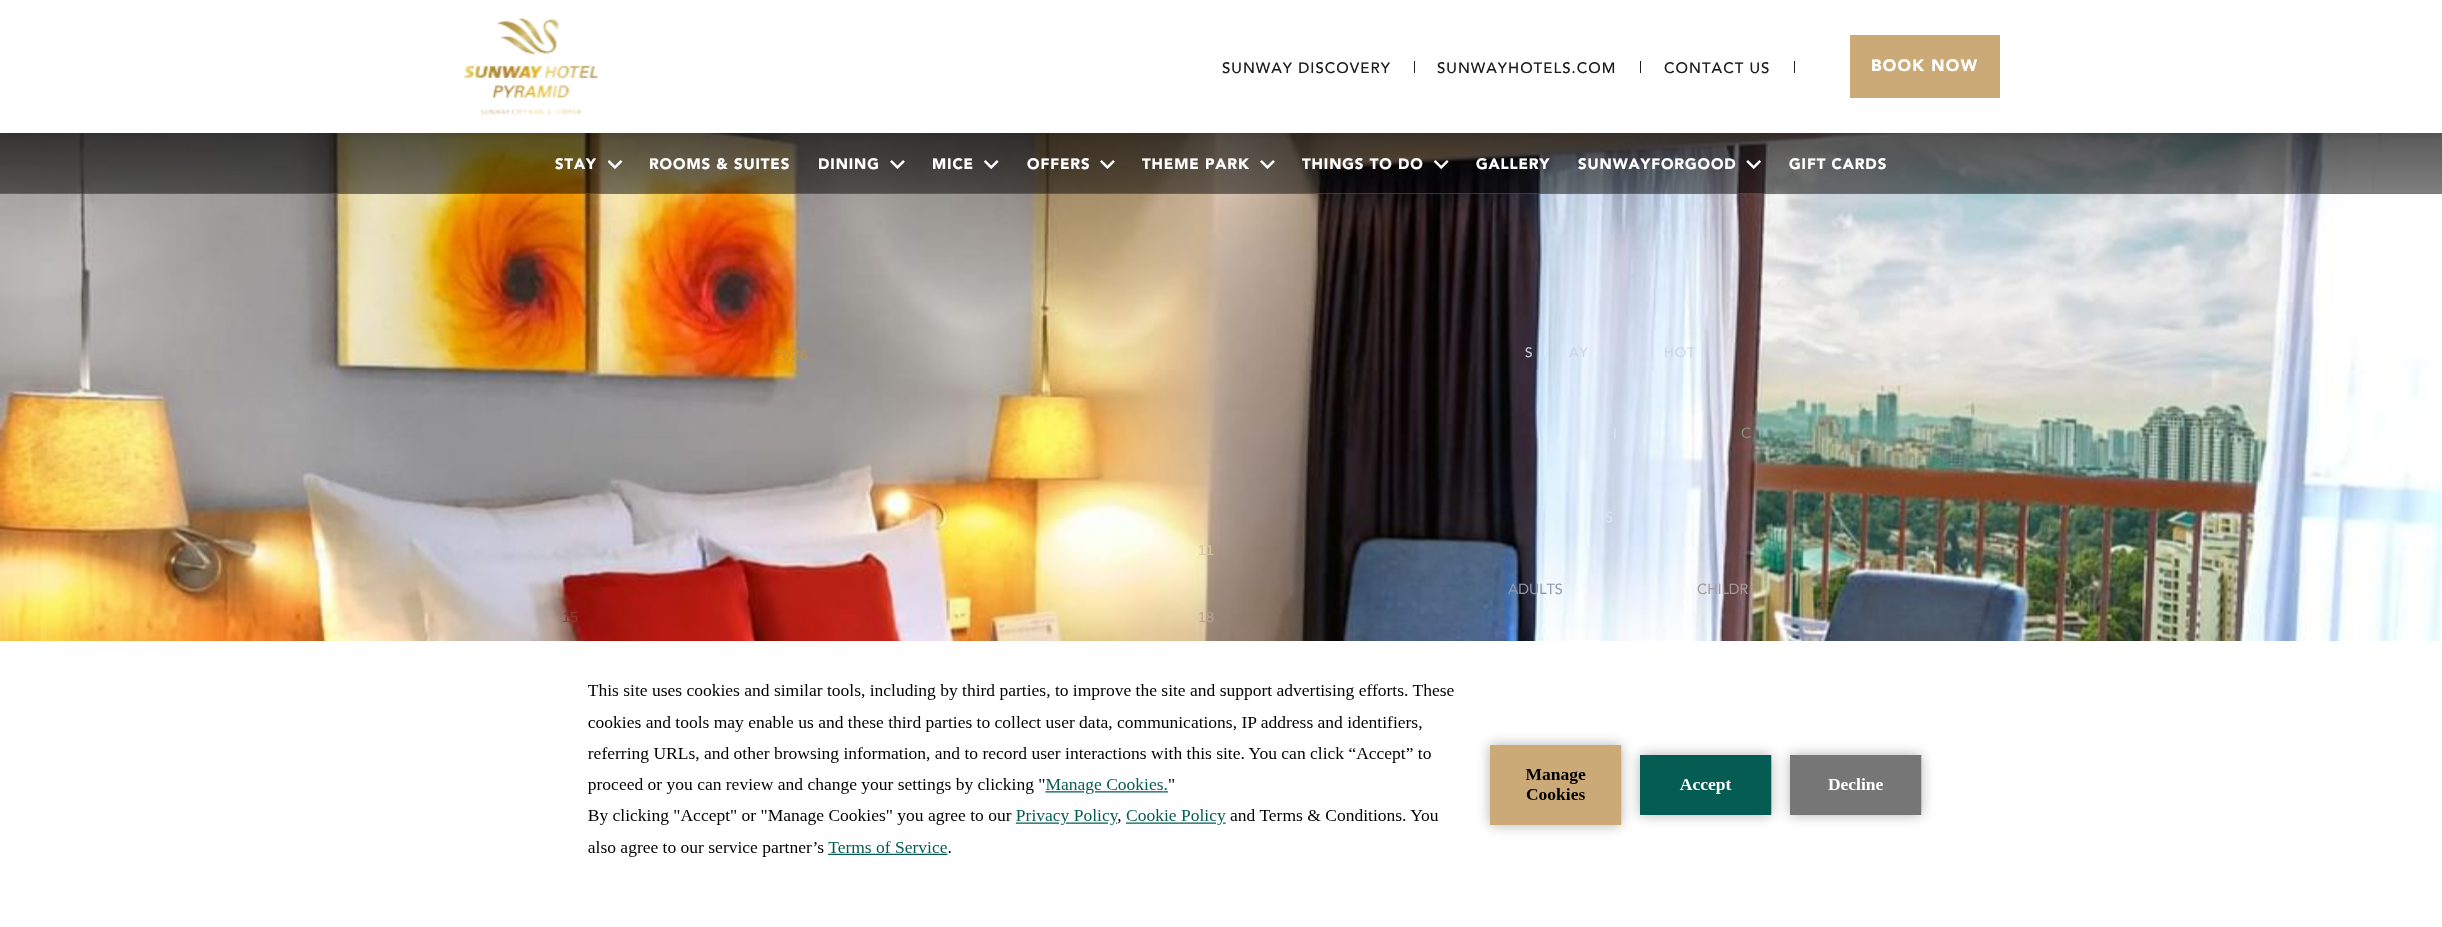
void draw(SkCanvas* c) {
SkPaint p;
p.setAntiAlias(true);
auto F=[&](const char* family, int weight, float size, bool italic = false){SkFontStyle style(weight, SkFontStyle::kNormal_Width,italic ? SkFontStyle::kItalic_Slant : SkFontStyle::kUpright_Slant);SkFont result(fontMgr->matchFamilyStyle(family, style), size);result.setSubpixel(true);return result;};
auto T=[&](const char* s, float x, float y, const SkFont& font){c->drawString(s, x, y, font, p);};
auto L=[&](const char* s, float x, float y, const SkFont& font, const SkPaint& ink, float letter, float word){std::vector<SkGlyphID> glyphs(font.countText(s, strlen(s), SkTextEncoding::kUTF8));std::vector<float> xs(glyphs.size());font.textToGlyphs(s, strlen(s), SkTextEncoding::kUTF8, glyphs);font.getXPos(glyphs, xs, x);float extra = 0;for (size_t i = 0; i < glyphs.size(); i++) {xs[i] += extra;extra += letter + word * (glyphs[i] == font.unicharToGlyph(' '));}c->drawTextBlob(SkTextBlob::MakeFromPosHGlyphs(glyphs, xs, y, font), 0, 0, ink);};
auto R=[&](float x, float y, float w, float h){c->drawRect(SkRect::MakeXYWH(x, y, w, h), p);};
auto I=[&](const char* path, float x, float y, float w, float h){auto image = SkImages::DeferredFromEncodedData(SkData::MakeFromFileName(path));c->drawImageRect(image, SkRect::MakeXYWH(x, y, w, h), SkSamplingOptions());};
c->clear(0xffffffff);
I("9.png",0,133,2442,508);
I("10.png",0,133,2,1);
{
const SkColor colors[] = {0xa6000000,0x80000000};
const float stops[] = {0,1};
const SkPoint ends[] = {{1221,132}, {1221,193}};
p.setShader(SkGradientShader::MakeLinear(ends, colors, stops, 2, SkTileMode::kClamp));
p.setAlpha(255);
}
R(0,133,2442,60);
p.setShader(nullptr);
p.setColor(0x29000000);
p.setMaskFilter(SkMaskFilter::MakeBlur(kNormal_SkBlurStyle, 3.5));
c->drawRect(SkRect::MakeXYWH(0,0,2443,133),p);
p.setMaskFilter(nullptr);
p.setColor(0xffffffff);
R(0,0,2442,133);
I("1.png",463,17,136,99);
auto f1 = F("Avenir",500,15);
p.setColor(0xff1d1d1d);
L("SUNWAY DISCOVERY",1222,73,f1,p,1,0);
R(1414,61,1,12);
L("SUNWAYHOTELS.COM",1437,73,f1,p,1,0);
R(1640,61,1,12);
L("CONTACT US",1664,73,f1,p,1,0);
R(1794,61,1,12);
p.setColor(0xffcbaa77);
R(1850,35,150,63);
auto f2 = F("Avenir",900,16.25);
p.setColor(0xffffffff);
L("BOOK NOW",1871,71,f2,p,1.25,0);
p.setColor(0x33ffffff);
R(0,193,2442,1);
auto f3 = F("Avenir",900,15);
p.setColor(0xffffffff);
L("STAY",555,169,f3,p,.9,0);
I("2.png",608,160,15,9);
L("ROOMS & SUITES",649,169,f3,p,.9,0);
L("DINING",818,169,f3,p,.9,0);
I("3.png",890,160,15,10);
L("MICE",932,169,f3,p,.9,0);
I("4.png",984,160,15,10);
L("OFFERS",1027,169,f3,p,.9,0);
I("5.png",1100,160,15,10);
L("THEME PARK",1142,169,f3,p,.9,0);
I("6.png",1260,160,15,10);
L("THINGS TO DO",1302,169,f3,p,.9,0);
I("7.png",1434,160,15,10);
L("GALLERY",1476,169,f3,p,.9,0);
L("SUNWAYFORGOOD",1578,169,f3,p,.9,0);
I("8.png",1746,160,15,10);
L("GIFT CARDS",1789,169,f3,p,.9,0);
auto f4 = F("Liberation Sans",400,14.5);
p.setColor(0xffc8933e);
L("2026",774,360,f4,p,.5,0);
p.setColor(0xff913630);
T("15",562,622,f4);
p.setColor(0xffd5c6a0);
T("11",1198,555,f4);
p.setColor(0xffbaa58c);
T("18",1198,622,f4);
auto f5 = F("Avenir",400,13.5);
p.setColor(0xffcbd5e4);
L("S",1525,357,f5,p,1,0);
L("AY",1569,357,f5,p,1,0);
L("HOT",1664,357,f5,p,1,0);
auto f6 = F("Avenir",400,14.5);
p.setColor(0xffdae6f5);
T("I",1613,438,f6);
p.setColor(0xff7a9589);
T("C",1741,438,f6);
p.setColor(0xffdae6f5);
T("S",1605,522,f6);
p.setColor(0xff8d9aad);
T("ADULTS",1508,594,f6);
p.setColor(0xffa69b96);
T("CHILDR",1697,594,f6);
I("11.png",0,641,2442,286);
}
